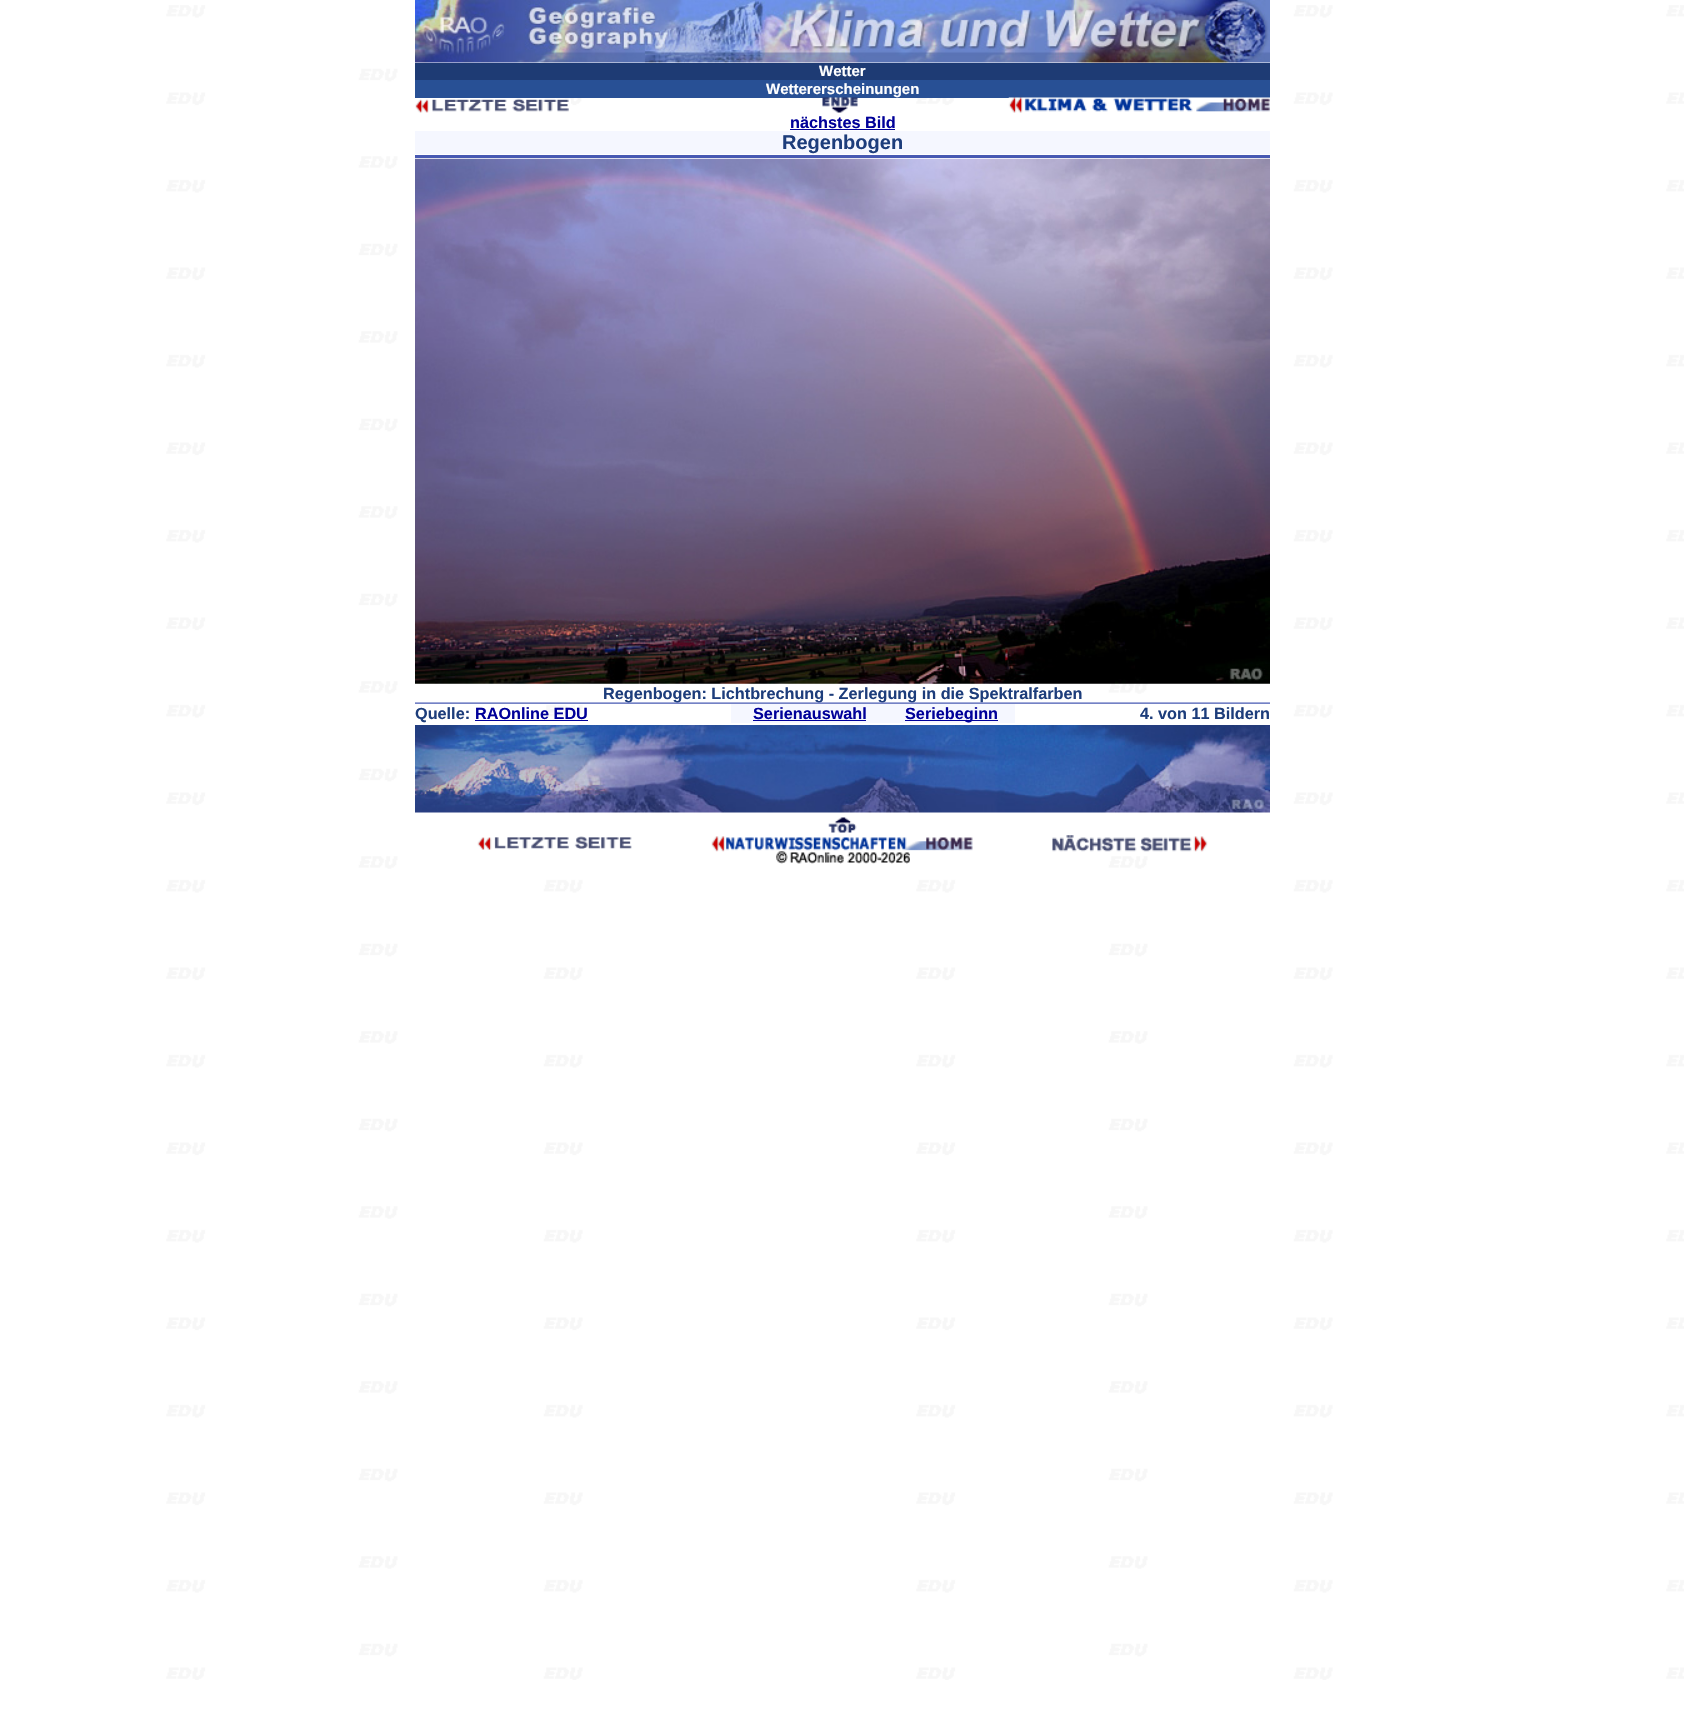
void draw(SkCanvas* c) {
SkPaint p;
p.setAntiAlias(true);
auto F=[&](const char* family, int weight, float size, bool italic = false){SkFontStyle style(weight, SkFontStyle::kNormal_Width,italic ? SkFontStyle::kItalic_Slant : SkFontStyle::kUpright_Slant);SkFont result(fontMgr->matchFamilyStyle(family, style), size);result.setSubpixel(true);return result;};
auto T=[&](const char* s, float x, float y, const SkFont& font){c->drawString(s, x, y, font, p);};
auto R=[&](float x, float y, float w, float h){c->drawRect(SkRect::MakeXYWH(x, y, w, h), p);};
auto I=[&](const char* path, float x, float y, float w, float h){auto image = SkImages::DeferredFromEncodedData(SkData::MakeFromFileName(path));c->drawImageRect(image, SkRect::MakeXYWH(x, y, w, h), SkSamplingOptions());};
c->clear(0xffffffff);
I("1.png",166,5,1518,1675);
I("2.png",415,0,855,63);
p.setColor(0xff1e3b74);
R(415,63,855,17);
auto f1 = F("Liberation Sans",700,15);
p.setColor(0xffffffff);
T("Wetter",819,76,f1);
p.setColor(0xff285095);
R(415,80,855,18);
p.setColor(0xffffffff);
T("Wettererscheinungen",766,94,f1);
I("3.png",415,98,156,15);
I("4.png",822,97,36,16);
I("5.png",1008,97,262,16);
auto f2 = F("Liberation Sans",700,16.25);
p.setColor(0xff000099);
T("nächstes Bild",790,128,f2);
R(790,129,105,1);
p.setColor(0xfff5f7ff);
R(415,131,855,23);
auto f3 = F("Liberation Sans",700,20);
p.setColor(0xff1d3d7b);
T("Regenbogen",782,149,f3);
p.setColor(0xff4759b3);
R(415,155,855,3);
I("6.png",415,158,855,526);
p.setColor(0xff1d3d7b);
T("Regenbogen: Lichtbrechung - Zerlegung in die Spektralfarben",603,699,f2);
I("7.png",415,702,855,2);
T("Quelle:",415,719,f2);
p.setColor(0xff000099);
T("RAOnline EDU",475,719,f2);
R(475,720,113,1);
p.setColor(0xfff5f7ff);
R(731,704,284,19);
p.setColor(0xff000099);
T("Serienauswahl",753,719,f2);
R(753,720,113,1);
R(905,720,93,1);
T("Seriebeginn",905,719,f2);
p.setColor(0xff1d3d7b);
T("4. von 11 Bildern",1140,719,f2);
I("8.png",415,725,855,88);
I("9.png",828,817,29,16);
I("10.png",477,836,155,14);
I("11.png",711,836,262,16);
I("12.png",1052,835,156,17);
I("13.png",776,851,134,13);
}
